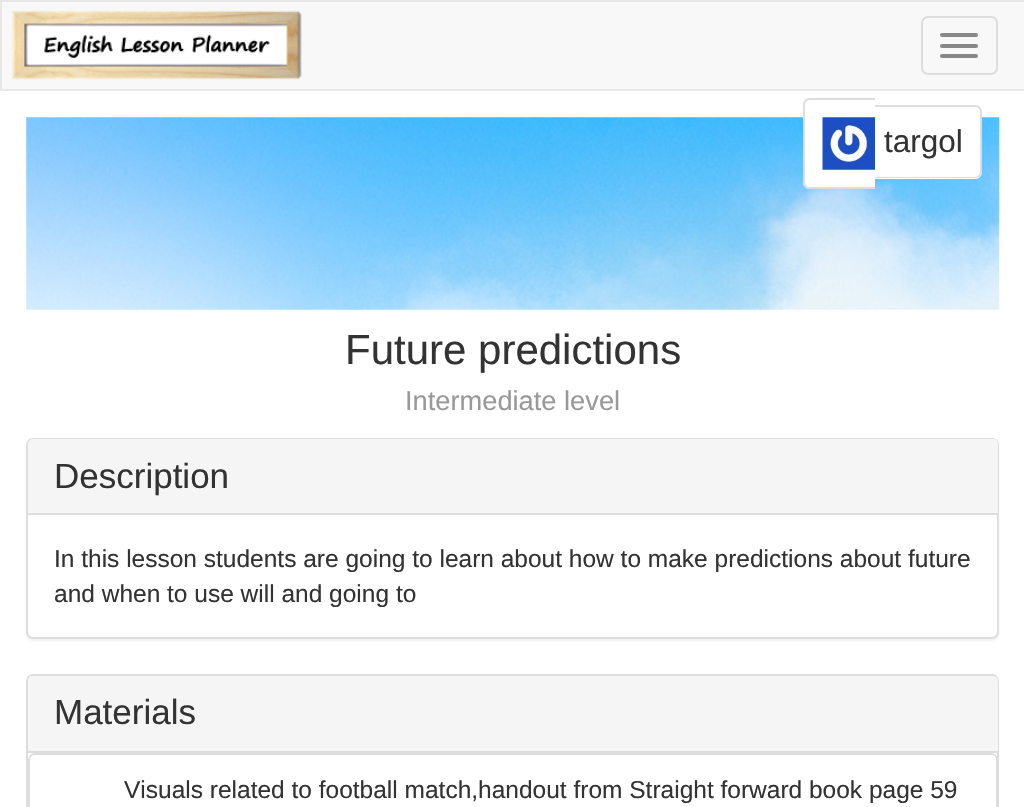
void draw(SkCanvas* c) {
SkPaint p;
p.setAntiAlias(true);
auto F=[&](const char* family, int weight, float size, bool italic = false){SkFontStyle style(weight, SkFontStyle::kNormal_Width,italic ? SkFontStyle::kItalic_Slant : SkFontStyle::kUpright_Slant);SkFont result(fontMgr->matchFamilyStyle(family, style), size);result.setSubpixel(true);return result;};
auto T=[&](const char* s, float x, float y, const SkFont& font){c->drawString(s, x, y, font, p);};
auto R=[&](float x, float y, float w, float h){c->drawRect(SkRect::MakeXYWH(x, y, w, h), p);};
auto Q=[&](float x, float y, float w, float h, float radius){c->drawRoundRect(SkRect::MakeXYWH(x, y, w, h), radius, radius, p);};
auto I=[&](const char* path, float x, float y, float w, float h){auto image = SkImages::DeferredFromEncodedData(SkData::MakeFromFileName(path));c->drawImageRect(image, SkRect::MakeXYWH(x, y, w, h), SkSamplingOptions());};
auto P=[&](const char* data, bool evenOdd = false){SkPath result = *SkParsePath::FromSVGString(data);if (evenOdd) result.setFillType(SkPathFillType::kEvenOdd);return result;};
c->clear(0xffffffff);
p.setColor(0xfff8f8f8);
c->drawRect(SkRect::MakeXYWH(1,1,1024,89),p);
p.setStroke(true);
p.setStrokeWidth(2);
p.setColor(0xffe7e7e7);
c->drawRect(SkRect::MakeXYWH(1,1,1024,89),p);
I("1.png",11,10,291,70);
p.setColor(0xffdddddd);
c->drawRoundRect(SkRect::MakeXYWH(922,17,75,57),6,6,p);
p.setStroke(false);
p.setColor(0xff888888);
Q(940,33,38,4,2);
Q(940,44,38,4,2);
Q(940,54,38,4,2);
I("2.png",26,117,974,193);
p.setColor(0xffffffff);
c->drawPath(P("M810 98h65v91h-65c-4 0-7-3-7-7v-77c0-4 3-7 7-7z"),p);
p.setColor(0xffdddddd);
c->drawPath(P("M810 98h65v91h-65c-4 0-7-3-7-7v-77c0-4 3-7 7-7zm0 2h65v87h-65c-3 0-5-2-5-5v-77c0-3 2-5 5-5z",true),p);
I("3.png",822,117,53,53);
p.setColor(0xffffffff);
c->drawPath(P("M875 105h100c4 0 7 3 7 7v60c0 4-3 7-7 7h-100z"),p);
p.setColor(0xffdddddd);
c->drawPath(P("M875 105h100c4 0 7 3 7 7v60c0 3-3 6-7 6h-100zm0 2h100c3 0 5 2 5 5v60c0 2-2 5-5 5h-100z",true),p);
auto f1 = F("Liberation Sans",400,31.5);
p.setColor(0xff333333);
T("targol",884,152,f1);
auto f2 = F("Liberation Sans",400,42);
T("Future predictions",345,364,f2);
auto f3 = F("Liberation Sans",400,27.25);
p.setColor(0xff999999);
T("Intermediate level",405,410,f3);
p.setColor(0x0d000000);
p.setMaskFilter(SkMaskFilter::MakeBlur(kNormal_SkBlurStyle, 1));
c->drawRoundRect(SkRect::MakeXYWH(26,439,973,202),7,7,p);
p.setMaskFilter(nullptr);
p.setColor(0xffffffff);
c->drawRoundRect(SkRect::MakeXYWH(27,439,971,199),6,6,p);
p.setStroke(true);
p.setColor(0xffdddddd);
c->drawRoundRect(SkRect::MakeXYWH(27,439,971,199),6,6,p);
p.setStroke(false);
p.setColor(0xfff5f5f5);
c->drawPath(P("M33 439h960c3 0 5 2 5 5v71h-970v-71c0-3 2-5 5-5z"),p);
p.setColor(0xffdddddd);
R(28,513,970,2);
auto f4 = F("Liberation Sans",400,35);
p.setColor(0xff333333);
T("Description",54,488,f4);
auto f5 = F("Liberation Sans",400,24.5);
T("In this lesson students are going to learn about how to make predictions about future",54,567,f5);
T("and when to use will and going to",54,602,f5);
p.setStroke(true);
p.setColor(0xffdddddd);
c->drawRoundRect(SkRect::MakeXYWH(27,675,971,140),6,6,p);
p.setStroke(false);
p.setColor(0xfff5f5f5);
c->drawPath(P("M33 676h960c3 0 5 2 5 5v72h-970v-72c0-3 2-5 5-5z"),p);
p.setColor(0xffdddddd);
R(28,751,970,2);
p.setColor(0xff333333);
T("Materials",54,724,f4);
p.setColor(0xffffffff);
c->drawPath(P("M35 754h956c3.5 0 6 2.5 6 6v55h-968v-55c0-3.5 2.5-6 6-6z"),p);
p.setStroke(true);
p.setColor(0xffdddddd);
c->drawPath(P("M35 754h956c3.5 0 6 2.5 6 6v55h-968v-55c0-3.5 2.5-6 6-6z"),p);
p.setStroke(false);
p.setColor(0xff333333);
T("Visuals related to football match,handout from Straight forward book page 59",124,798,f5);
}
